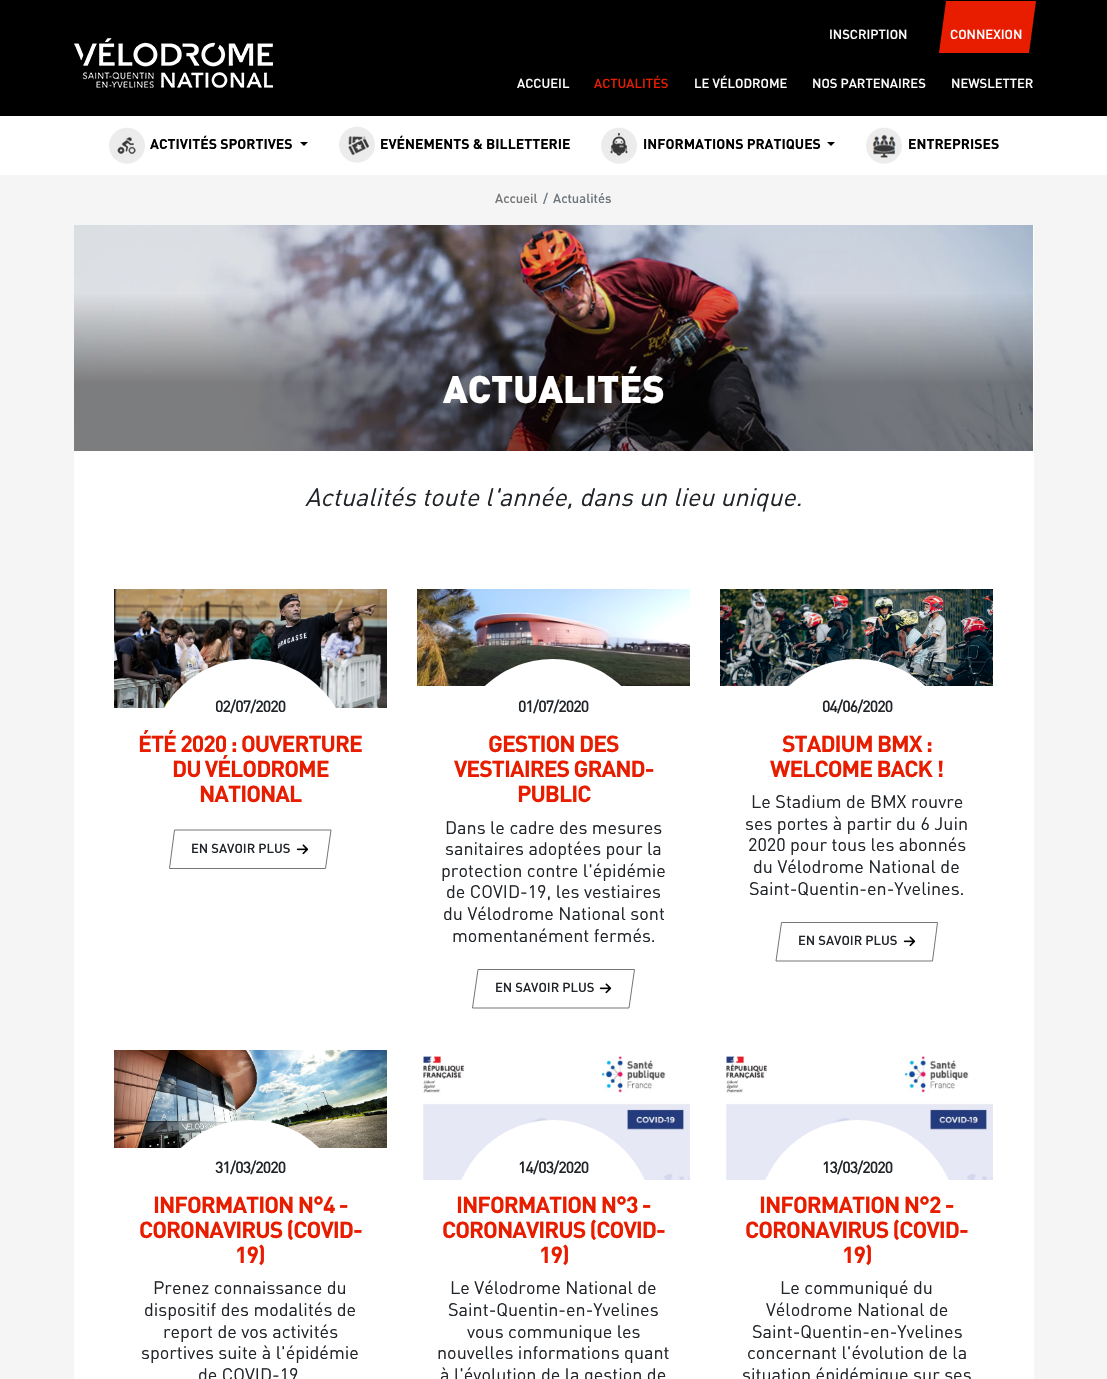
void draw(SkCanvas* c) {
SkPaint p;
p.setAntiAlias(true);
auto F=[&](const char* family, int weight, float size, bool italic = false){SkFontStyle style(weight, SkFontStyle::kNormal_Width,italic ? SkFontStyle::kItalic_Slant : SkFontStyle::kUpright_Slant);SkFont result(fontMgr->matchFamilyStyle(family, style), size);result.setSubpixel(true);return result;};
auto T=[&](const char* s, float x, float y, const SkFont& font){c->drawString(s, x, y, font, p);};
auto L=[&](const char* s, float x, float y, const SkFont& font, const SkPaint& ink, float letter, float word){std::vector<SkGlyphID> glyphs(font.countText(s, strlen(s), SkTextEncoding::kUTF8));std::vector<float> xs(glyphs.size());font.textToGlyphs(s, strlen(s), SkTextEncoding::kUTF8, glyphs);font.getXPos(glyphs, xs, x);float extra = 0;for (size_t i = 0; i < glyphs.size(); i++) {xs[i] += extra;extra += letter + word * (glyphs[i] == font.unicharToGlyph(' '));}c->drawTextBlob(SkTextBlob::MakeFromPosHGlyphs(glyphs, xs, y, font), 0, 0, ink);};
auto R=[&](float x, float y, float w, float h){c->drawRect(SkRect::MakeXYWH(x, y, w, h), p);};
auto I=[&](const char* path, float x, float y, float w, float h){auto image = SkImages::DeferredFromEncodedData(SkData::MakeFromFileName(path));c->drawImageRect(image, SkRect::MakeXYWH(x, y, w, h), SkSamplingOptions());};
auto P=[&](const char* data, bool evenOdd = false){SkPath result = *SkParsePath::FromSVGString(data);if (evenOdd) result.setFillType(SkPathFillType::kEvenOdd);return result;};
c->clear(0xffffffff);
p.setColor(0xff000000);
R(0,0,1107,116);
I("1.png",74,38,199,50);
auto f1 = F("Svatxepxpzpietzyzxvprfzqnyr",500,13);
p.setColor(0xffffffff);
T("INSCRIPTION",829,39,f1);
p.setColor(0xffe81d00);
c->drawPath(P("M946 1h90l-7 52h-90z"),p);
p.setColor(0xffffffff);
T("CONNEXION",950,39,f1);
T("ACCUEIL",517,88,f1);
p.setColor(0xffe81d00);
T("ACTUALITÉS",594,88,f1);
p.setColor(0xffffffff);
T("LE VÉLODROME",694,88,f1);
T("NOS PARTENAIRES",812,88,f1);
T("NEWSLETTER",951,88,f1);
I("2.png",109,127,36,37);
auto f2 = F("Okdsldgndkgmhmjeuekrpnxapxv",700,14);
p.setColor(0xff000000);
T("ACTIVITÉS SPORTIVES",150,149,f2);
c->drawPath(P("M300 142h8l-4 4z"),p);
I("3.png",339,126,36,37);
T("EVÉNEMENTS & BILLETTERIE",380,149,f2);
I("4.png",601,127,36,37);
T("INFORMATIONS PRATIQUES",643,149,f2);
c->drawPath(P("M827 142h8l-4 4z"),p);
I("5.png",866,127,36,37);
T("ENTREPRISES",908,149,f2);
p.setColor(0xfff5f5f5);
R(0,175,1107,1204);
p.setColor(0xff757575);
T("Accueil",495,203,f1);
p.setColor(0xff6c757d);
T("/",543,203,f1);
T("Actualités",553,203,f1);
p.setColor(0xffffffff);
R(74,225,960,1154);
I("6.png",74,225,959,226);
auto f3 = F("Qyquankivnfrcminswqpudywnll",900,38);
T("ACTUALITÉS",443,403,f3);
auto f4 = F("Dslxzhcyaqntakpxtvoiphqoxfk",400,25,true);
p.setColor(0xff212529);
T("Actualités toute l'année, dans un lieu unique.",305,506,f4);
I("7.png",114,589,273,119);
p.setColor(0xffffffff);
c->drawPath(P("M250 659c55 0 100 45 100 100h-200c0-55 45-100 100-100z"),p);
auto f5 = F("Svatxepxpzpietzyzxvprfzqnyr",500,16);
p.setColor(0xff212529);
L("02/07/2020",215,712,f5,p,-1,0);
auto f6 = F("Okdsldgndkgmhmjeuekrpnxapxv",700,23);
p.setColor(0xffe81d00);
L("ÉTÉ 2020 : OUVERTURE",138,752,f6,p,-1,0);
L("DU VÉLODROME",172,777,f6,p,-1,0);
L("NATIONAL",199,802,f6,p,-1,0);
p.setStroke(true);
p.setStrokeWidth(1);
p.setColor(0xff757575);
c->drawPath(P("M174.5 830h156.5l-5.5 38.5h-156z"),p);
p.setStroke(false);
p.setColor(0xff212529);
T("EN SAVOIR PLUS",191,853,f1);
I("8.png",296,844,13,11);
I("9.png",417,589,273,97);
p.setColor(0xffffffff);
c->drawPath(P("M553 659c55 0 100 45 100 100h-200c0-55 45-100 100-100z"),p);
p.setColor(0xff212529);
L("01/07/2020",518,712,f5,p,-1,0);
p.setColor(0xffe81d00);
L("GESTION DES",488,752,f6,p,-1,0);
L("VESTIAIRES GRAND-",454,777,f6,p,-1,0);
L("PUBLIC",517,802,f6,p,-1,0);
auto f7 = F("Dslxzhcyaqntakpxtvoiphqoxfk",400,18);
p.setColor(0xff212529);
T("Dans le cadre des mesures",445,834,f7);
T("sanitaires adoptées pour la",445,855,f7);
T("protection contre l'épidémie",441,877,f7);
T("de COVID-19, les vestiaires",446,898,f7);
T("du Vélodrome National sont",443,920,f7);
T("momentanément fermés.",452,942,f7);
p.setStroke(true);
p.setColor(0xff757575);
c->drawPath(P("M478 969.5h156.5l-5.5 38.5h-156.5z"),p);
p.setStroke(false);
p.setColor(0xff212529);
T("EN SAVOIR PLUS",495,992,f1);
I("8.png",599,983,13,11);
I("10.png",720,589,273,97);
p.setColor(0xffffffff);
c->drawPath(P("M857 659c55 0 100 45 100 100h-200c0-55 45-100 100-100z"),p);
p.setColor(0xff212529);
L("04/06/2020",822,712,f5,p,-1,0);
p.setColor(0xffe81d00);
L("STADIUM BMX :",782,752,f6,p,-1,0);
L("WELCOME BACK !",770,777,f6,p,-1,0);
p.setColor(0xff212529);
T("Le Stadium de BMX rouvre",751,808,f7);
T("ses portes à partir du 6 Juin",745,830,f7);
T("2020 pour tous les abonnés",748,851,f7);
T("du Vélodrome National de",753,873,f7);
T("Saint-Quentin-en-Yvelines.",749,895,f7);
p.setStroke(true);
p.setColor(0xff757575);
c->drawPath(P("M781.5 922.5h156l-5 38.5h-156.5z"),p);
p.setStroke(false);
p.setColor(0xff212529);
T("EN SAVOIR PLUS",798,945,f1);
I("8.png",903,936,13,11);
I("11.png",114,1050,273,98);
p.setColor(0xffffffff);
c->drawPath(P("M250 1120c55 0 100 45 100 100h-200c0-55 45-100 100-100z"),p);
p.setColor(0xff212529);
L("31/03/2020",215,1173,f5,p,-1,0);
p.setColor(0xffe81d00);
L("INFORMATION N°4 -",153,1213,f6,p,-1,0);
L("CORONAVIRUS (COVID-",139,1238,f6,p,-1,0);
L("19)",235,1263,f6,p,-1,0);
p.setColor(0xff212529);
T("Prenez connaissance du",153,1294,f7);
T("dispositif des modalités de",144,1316,f7);
T("report de vos activités",163,1338,f7);
T("sportives suite à l'épidémie",141,1359,f7);
T("de COVID-19",198,1381,f7);
I("12.png",423,1056,267,124);
p.setColor(0xffffffff);
c->drawPath(P("M553 1120c55 0 100 45 100 100h-200c0-55 45-100 100-100z"),p);
p.setColor(0xff212529);
L("14/03/2020",518,1173,f5,p,-1,0);
p.setColor(0xffe81d00);
L("INFORMATION N°3 -",456,1213,f6,p,-1,0);
L("CORONAVIRUS (COVID-",442,1238,f6,p,-1,0);
L("19)",539,1263,f6,p,-1,0);
p.setColor(0xff212529);
T("Le Vélodrome National de",450,1294,f7);
T("Saint-Quentin-en-Yvelines",448,1316,f7);
T("vous communique les",467,1338,f7);
T("nouvelles informations quant",437,1359,f7);
T("à l'évolution de la gestion de",440,1381,f7);
I("12.png",726,1056,267,124);
p.setColor(0xffffffff);
c->drawPath(P("M857 1120c55 0 100 45 100 100h-200c0-55 45-100 100-100z"),p);
p.setColor(0xff212529);
L("13/03/2020",822,1173,f5,p,-1,0);
p.setColor(0xffe81d00);
L("INFORMATION N°2 -",759,1213,f6,p,-1,0);
L("CORONAVIRUS (COVID-",745,1238,f6,p,-1,0);
L("19)",842,1263,f6,p,-1,0);
p.setColor(0xff212529);
T("Le communiqué du",780,1294,f7);
T("Vélodrome National de",766,1316,f7);
T("Saint-Quentin-en-Yvelines",752,1338,f7);
T("concernant l'évolution de la",747,1359,f7);
T("situation épidémique sur ses",742,1381,f7);
}
